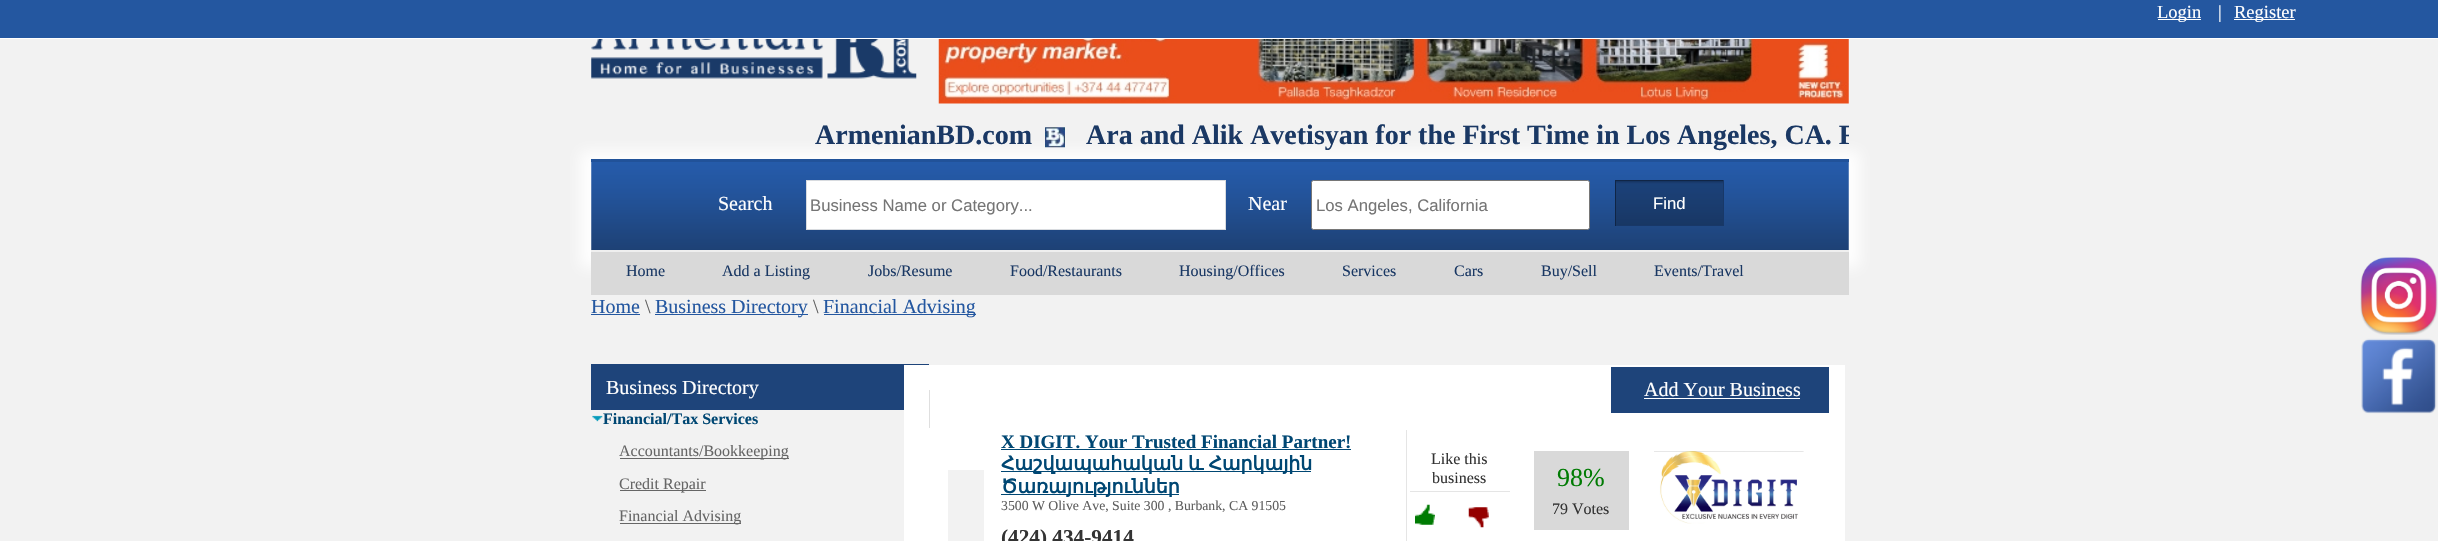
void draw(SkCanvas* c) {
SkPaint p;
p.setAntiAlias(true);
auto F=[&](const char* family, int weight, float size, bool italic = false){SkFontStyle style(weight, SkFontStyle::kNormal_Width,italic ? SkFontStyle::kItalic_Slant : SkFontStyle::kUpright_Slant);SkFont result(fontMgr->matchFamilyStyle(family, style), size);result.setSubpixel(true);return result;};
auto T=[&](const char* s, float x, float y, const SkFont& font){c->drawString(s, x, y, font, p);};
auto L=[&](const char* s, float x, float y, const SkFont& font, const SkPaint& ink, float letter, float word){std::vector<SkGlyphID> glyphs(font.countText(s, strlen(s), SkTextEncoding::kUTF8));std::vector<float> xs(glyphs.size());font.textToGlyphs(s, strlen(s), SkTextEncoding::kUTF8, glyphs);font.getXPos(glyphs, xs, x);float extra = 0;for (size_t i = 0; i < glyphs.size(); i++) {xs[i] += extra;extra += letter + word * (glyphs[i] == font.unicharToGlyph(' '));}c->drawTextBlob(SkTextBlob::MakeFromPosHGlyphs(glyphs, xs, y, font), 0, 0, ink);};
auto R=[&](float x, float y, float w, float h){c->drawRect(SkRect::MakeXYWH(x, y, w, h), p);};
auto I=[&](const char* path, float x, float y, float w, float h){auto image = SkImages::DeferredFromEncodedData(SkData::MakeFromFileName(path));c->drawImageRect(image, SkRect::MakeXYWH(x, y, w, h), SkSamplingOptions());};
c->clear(0xfff2f2f2);
p.setColor(0xff2457a0);
R(0,0,2438,38);
p.setColor(0xffffffff);
R(0,38,2438,1);
R(2158,19,43,1);
auto f1 = F("Liberation Serif",400,18.5);
T("Login",2157,18,f1);
T("|",2218,18,f1);
R(2234,19,61,1);
T("Register",2234,18,f1);
I("1.png",591,39,326,40);
I("2.png",938,39,911,65);
p.setMaskFilter(SkMaskFilter::MakeBlur(kNormal_SkBlurStyle, 7));
c->drawRect(SkRect::MakeXYWH(580,151,1280,117),p);
p.setMaskFilter(nullptr);
auto f2 = F("Liberation Serif",700,28);
p.setColor(0xff1a3864);
T("ArmenianBD.com",815,144,f2);
I("3.png",1045,127,20,21);
c->save();
c->clipRect(SkRect::MakeXYWH(591,118,1258,33));
T("Ara and Alik Avetisyan for the First Time in Los Angeles, CA. F",1086,144,f2);
c->restore();
I("4.png",591,162,1258,88);
p.setColor(0xff215299);
R(591,159,1258,3);
p.setColor(0xffefefef);
R(591,250,1258,2);
auto f3 = F("Liberation Serif",400,20);
p.setColor(0xffffffff);
T("Search",718,210,f3);
c->drawRect(SkRect::MakeXYWH(806.5,180.5,419,49),p);
p.setStroke(true);
p.setStrokeWidth(1);
p.setColor(0xffd8dbdf);
c->drawRect(SkRect::MakeXYWH(806.5,180.5,419,49),p);
auto f4 = F("Liberation Sans",400,16.7);
p.setStroke(false);
p.setColor(0xff757575);
T("Business Name or Category...",810,211,f4);
p.setColor(0xffffffff);
T("Near",1248,210,f3);
c->drawRoundRect(SkRect::MakeXYWH(1311.5,180.5,278,49),2,2,p);
p.setStroke(true);
p.setColor(0xff767676);
c->drawRoundRect(SkRect::MakeXYWH(1311.5,180.5,278,49),2,2,p);
p.setStroke(false);
p.setColor(0xff757575);
T("Los Angeles, California",1316,211,f4);
I("5.png",1616,181,107,44);
p.setColor(0xff102545);
R(1615,180,109,1);
p.setColor(0xff183868);
R(1723,180,1,46);
R(1615,225,109,1);
p.setColor(0xff102545);
R(1615,180,1,46);
p.setColor(0xffffffff);
T("Find",1653,209,f4);
p.setColor(0xffd9d9d9);
R(591,252,1258,43);
auto f5 = F("Liberation Serif",400,16);
p.setColor(0xff1a3864);
T("Home",626,276,f5);
T("Add a Listing",722,276,f5);
T("Jobs/Resume",868,276,f5);
T("Food/Restaurants",1010,276,f5);
T("Housing/Offices",1179,276,f5);
T("Services",1342,276,f5);
T("Cars",1454,276,f5);
T("Buy/Sell",1541,276,f5);
T("Events/Travel",1654,276,f5);
p.setColor(0xff2457a0);
T("Home",591,313,f3);
R(591,314,49,1);
p.setColor(0xff5f5f5f);
T("\\",645,313,f3);
p.setColor(0xff2457a0);
R(655,314,153,1);
T("Business Directory",655,313,f3);
p.setColor(0xff5f5f5f);
T("\\",813,313,f3);
p.setColor(0xff2457a0);
R(824,314,152,1);
T("Financial Advising",823,313,f3);
p.setColor(0xff1e447a);
R(591,364,338,46);
p.setColor(0xffffffff);
T("Business Directory",606,394,f3);
I("6.png",592,415,11,7);
auto f6 = F("Liberation Serif",700,16);
p.setColor(0xff004773);
T("Financial/Tax Services",603,424,f6);
p.setColor(0xff666666);
R(620,458,169,1);
T("Accountants/Bookkeeping",619,456,f5);
R(620,490,86,1);
T("Credit Repair",619,489,f5);
R(620,523,121,1);
T("Financial Advising",619,521,f5);
p.setColor(0xffffffff);
R(904,365,941,176);
p.setColor(0xffdfdfdf);
R(929,390,1,38);
p.setColor(0xff1e447a);
R(1611,367,218,46);
p.setColor(0xffffffff);
T("Add Your Business",1644,396,f3);
R(1644,398,156,1);
p.setColor(0xfff2f2f2);
R(948,470,36,71);
p.setColor(0xffe5e5e5);
R(1406,430,1,111);
auto f7 = F("Liberation Serif",700,19);
p.setColor(0xff004773);
T("X DIGIT. Your Trusted Financial Partner!",1001,448,f7);
R(1001,449,350,1);
R(1001,471,310,1);
auto f8 = F("DejaVu Sans",700,19);
T("Հաշվապահական",1001,470,f8);
L("և Հարկային",1188,470,f8,p,0,-1);
R(1001,494,178,1);
T("Ծառայություններ",1001,493,f8);
auto f9 = F("Liberation Serif",400,13.75);
p.setColor(0xff5f5f5f);
T("3500 W Olive Ave, Suite 300 , Burbank, CA 91505",1001,510,f9);
auto f10 = F("Liberation Serif",700,21.25);
p.setColor(0xff333333);
T("(424) 434-9414",1001,544,f10);
p.setColor(0xffe5e5e5);
R(1410,491,100,1);
p.setColor(0xff333333);
T("Like this",1431,464,f5);
T("business",1432,483,f5);
I("7.png",1415,504,20,21);
I("8.png",1468,507,21,21);
p.setColor(0xffd9d9d9);
R(1534,451,95,79);
auto f11 = F("Liberation Serif",400,26);
p.setColor(0xff007b03);
T("98%",1557,486,f11);
p.setColor(0xff333333);
T("79 Votes",1552,514,f5);
I("9.png",1654,451,150,73);
I("10.png",2360,257,78,78);
I("11.png",2361,338,76,76);
}
